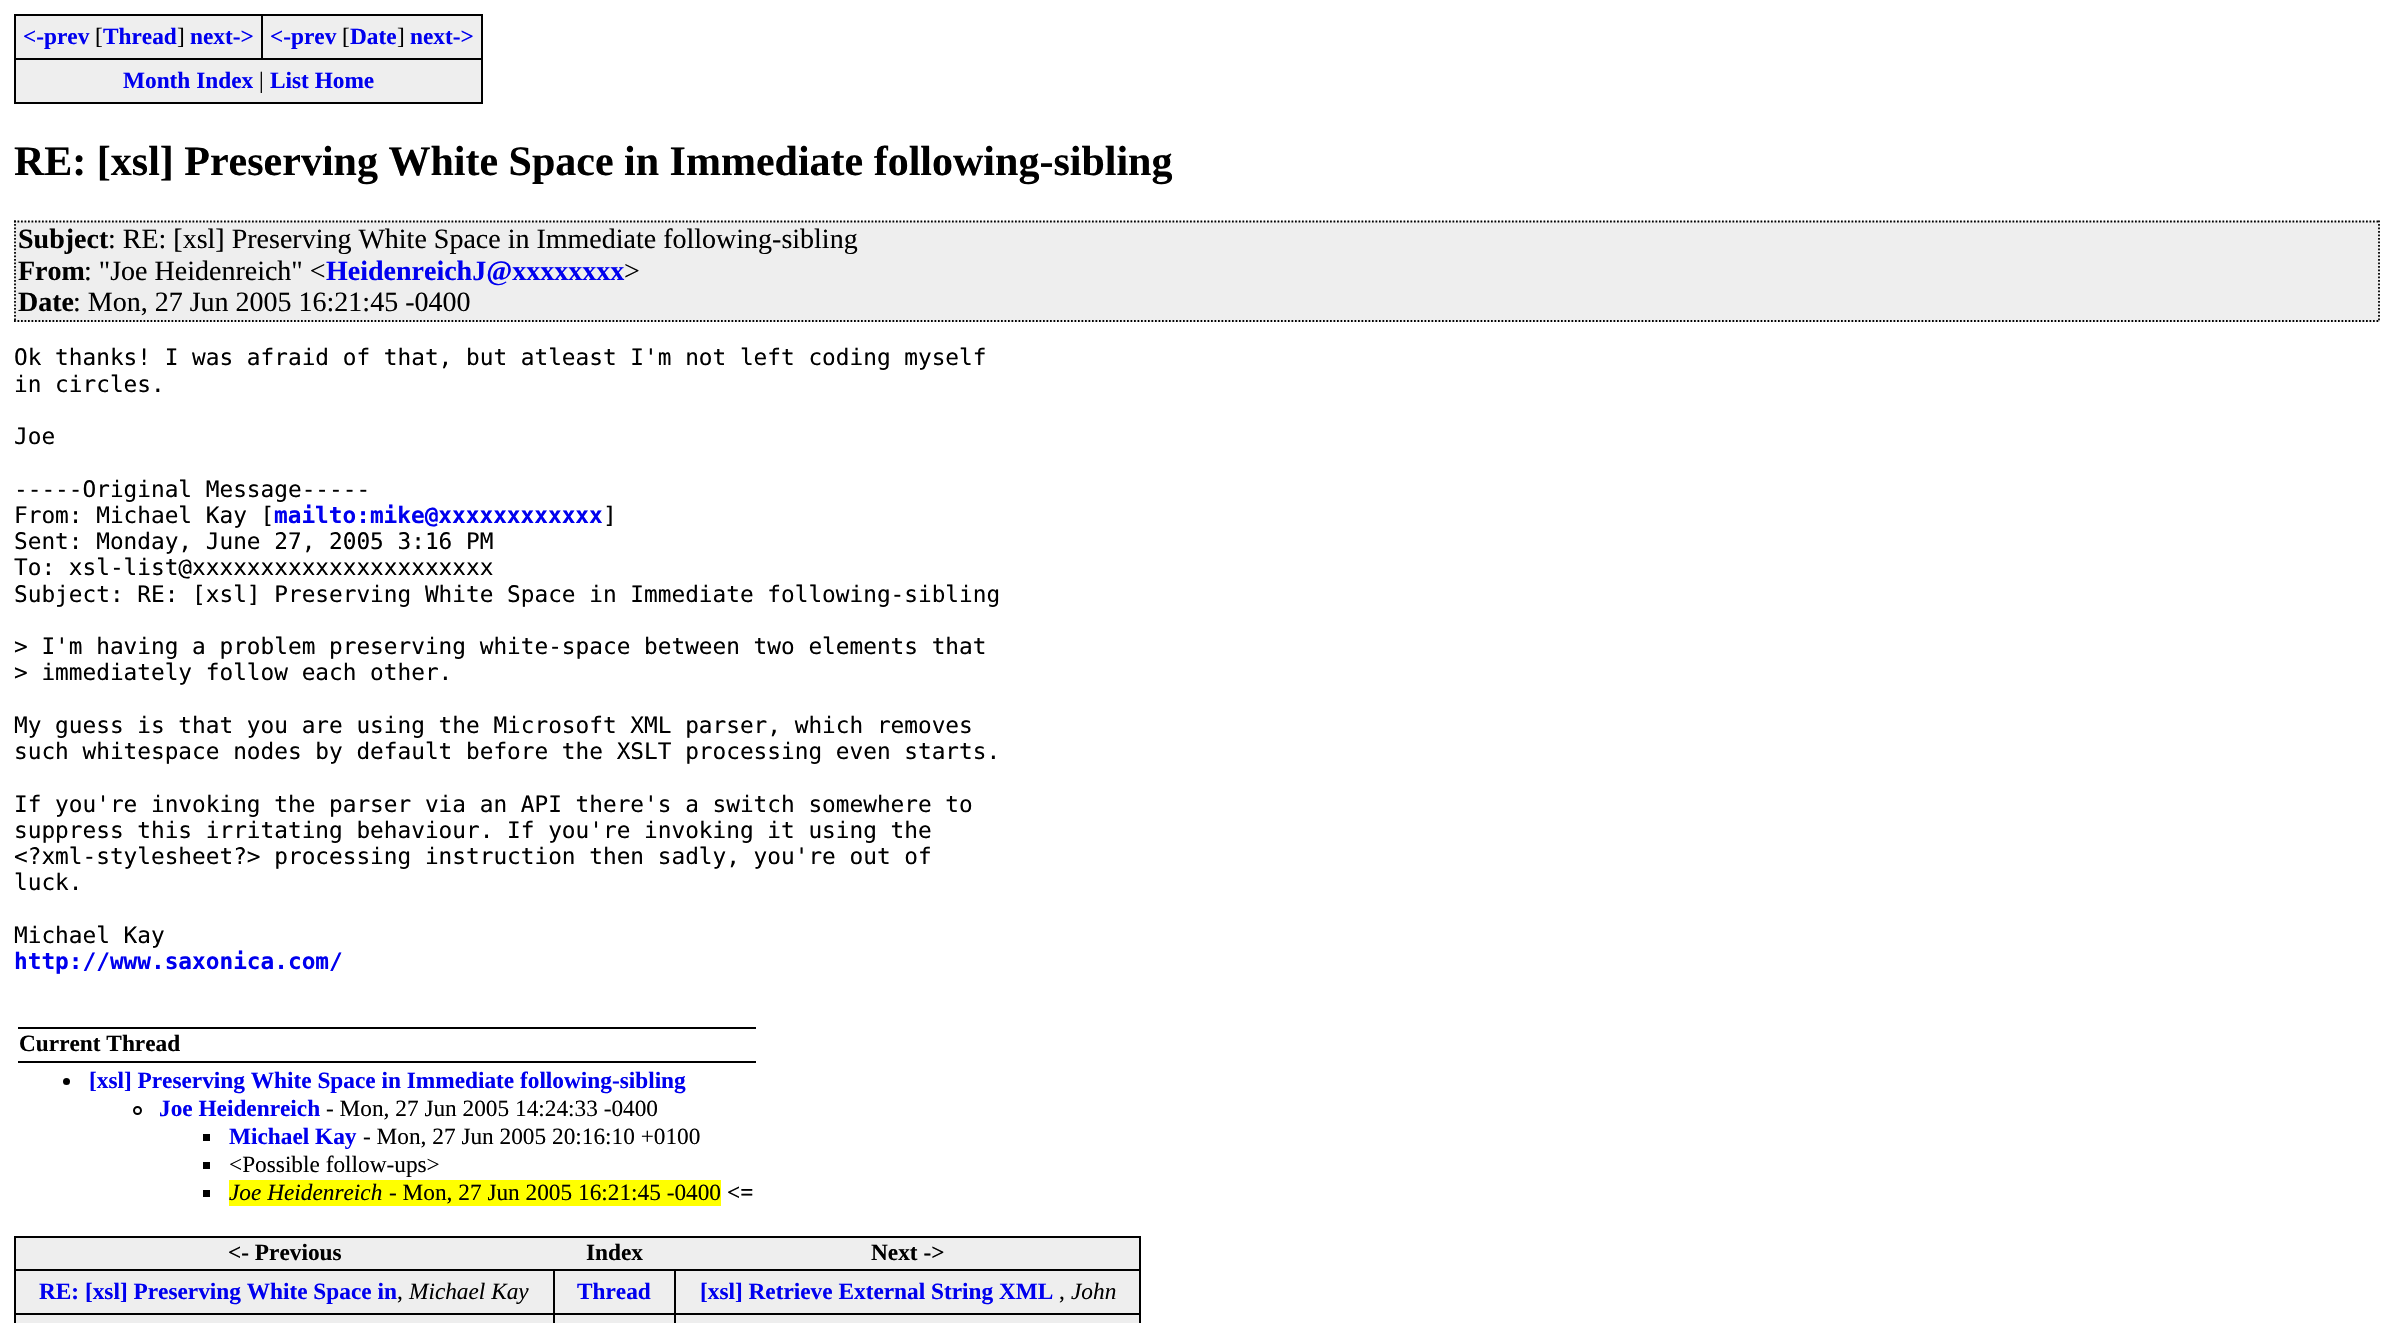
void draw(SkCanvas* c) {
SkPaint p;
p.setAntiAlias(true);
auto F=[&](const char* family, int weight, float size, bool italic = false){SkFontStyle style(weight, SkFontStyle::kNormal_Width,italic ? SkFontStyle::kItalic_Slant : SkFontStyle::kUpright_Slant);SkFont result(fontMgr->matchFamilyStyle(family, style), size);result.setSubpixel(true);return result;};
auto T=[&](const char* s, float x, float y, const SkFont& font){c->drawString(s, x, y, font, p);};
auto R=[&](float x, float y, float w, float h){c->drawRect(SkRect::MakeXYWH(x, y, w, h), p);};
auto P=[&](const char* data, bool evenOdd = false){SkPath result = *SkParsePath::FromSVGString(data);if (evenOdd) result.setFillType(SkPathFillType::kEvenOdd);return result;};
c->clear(0xffffffff);
p.setColor(0xffeeeeee);
R(16,16,465,86);
p.setColor(0xff000000);
R(14,14,469,2);
R(481,14,2,89);
R(14,102,469,2);
R(14,14,2,89);
auto f1 = F("Liberation Serif",700,23.3);
p.setColor(0xff0000ee);
T("<-prev",23,44,f1);
auto f2 = F("Liberation Serif",400,23.3);
p.setColor(0xff000000);
T("[",95,44,f2);
p.setColor(0xff0000ee);
T("Thread",103,44,f1);
p.setColor(0xff000000);
T("]",177,44,f2);
p.setColor(0xff0000ee);
T("next->",190,44,f1);
p.setColor(0xff000000);
R(14,58,469,2);
R(261,14,2,46);
p.setColor(0xff0000ee);
T("<-prev",270,44,f1);
p.setColor(0xff000000);
T("[",342,44,f2);
p.setColor(0xff0000ee);
T("Date",350,44,f1);
p.setColor(0xff000000);
T("]",397,44,f2);
p.setColor(0xff0000ee);
T("next->",410,44,f1);
T("Month Index",123,88,f1);
p.setColor(0xff000000);
T("|",259,88,f2);
p.setColor(0xff0000ee);
T("List Home",270,88,f1);
auto f3 = F("Liberation Serif",700,42);
p.setColor(0xff000000);
T("RE: [xsl] Preserving White Space in Immediate following-sibling",14,175,f3);
p.setColor(0xffeeeeee);
R(14,221,2366,101);
p.setStroke(true);
p.setStrokeWidth(1.8);
p.setColor(0xff000000);
p.setPathEffect(SkDashPathEffect::Make({{1.75f,1.75f}}, 0));
c->drawPath(P("M14 221.5h2366"),p);
p.setPathEffect(nullptr);
p.setPathEffect(SkDashPathEffect::Make({{1.75f,1.75f}}, 0));
c->drawPath(P("M2379 220.5v101.5"),p);
p.setPathEffect(nullptr);
p.setPathEffect(SkDashPathEffect::Make({{1.75f,1.75f}}, 0));
c->drawPath(P("M14 321h2366"),p);
p.setPathEffect(nullptr);
p.setPathEffect(SkDashPathEffect::Make({{1.75f,1.75f}}, 0));
c->drawPath(P("M15 220.5v101.5"),p);
p.setPathEffect(nullptr);
auto f4 = F("Liberation Serif",700,28);
p.setStroke(false);
T("Subject",18,248,f4);
auto f5 = F("Liberation Serif",400,28);
T(": RE: [xsl] Preserving White Space in Immediate following-sibling",108,248,f5);
T("From",18,280,f4);
T(": \"Joe Heidenreich\" <",84,280,f5);
p.setColor(0xff0000ee);
T("HeidenreichJ@xxxxxxxx",326,280,f4);
p.setColor(0xff000000);
T(">",624,280,f5);
T("Date",18,311,f4);
T(": Mon, 27 Jun 2005 16:21:45 -0400",73,311,f5);
auto f6 = F("DejaVu Sans Mono",400,22.75);
T("Ok thanks! I was afraid of that, but atleast I'm not left coding myself",14,365,f6);
T("in circles.",14,392,f6);
T("Joe",14,444,f6);
T("-----Original Message-----",14,497,f6);
T("From: Michael Kay [",14,523,f6);
auto f7 = F("DejaVu Sans Mono",700,22.75);
p.setColor(0xff0000ee);
T("mailto:mike@xxxxxxxxxxxx",274,523,f7);
p.setColor(0xff000000);
T("]",603,523,f6);
T("Sent: Monday, June 27, 2005 3:16 PM",14,549,f6);
T("To: xsl-list@xxxxxxxxxxxxxxxxxxxxxx",14,575,f6);
T("Subject: RE: [xsl] Preserving White Space in Immediate following-sibling",14,602,f6);
T("> I'm having a problem preserving white-space between two elements that",14,654,f6);
T("> immediately follow each other.",14,680,f6);
T("My guess is that you are using the Microsoft XML parser, which removes",14,733,f6);
T("such whitespace nodes by default before the XSLT processing even starts.",14,759,f6);
T("If you're invoking the parser via an API there's a switch somewhere to",14,812,f6);
T("suppress this irritating behaviour. If you're invoking it using the",14,838,f6);
T("<?xml-stylesheet?> processing instruction then sadly, you're out of",14,864,f6);
T("luck.",14,890,f6);
T("Michael Kay",14,943,f6);
p.setColor(0xff0000ee);
T("http://www.saxonica.com/",14,969,f7);
p.setColor(0xff000000);
R(18,1027,738,2);
R(18,1061,738,2);
T("Current Thread",19,1051,f1);
c->drawCircle(66.5,1081.5,3.5,p);
p.setColor(0xff0000ee);
T("[xsl] Preserving White Space in Immediate following-sibling",89,1088,f1);
p.setStroke(true);
p.setStrokeWidth(2);
p.setColor(0xff000000);
c->drawCircle(137.5,1110.5,3.5,p);
p.setStroke(false);
p.setColor(0xff0000ee);
T("Joe Heidenreich",159,1116,f1);
p.setColor(0xff000000);
T("- Mon, 27 Jun 2005 14:24:33 -0400",326,1116,f2);
R(203,1134,7,7);
p.setColor(0xff0000ee);
T("Michael Kay",229,1144,f1);
p.setColor(0xff000000);
T("- Mon, 27 Jun 2005 20:16:10 +0100",363,1144,f2);
R(203,1162,7,7);
T("<Possible follow-ups>",229,1172,f2);
R(203,1190,7,7);
p.setColor(0xffffff00);
R(229,1180,492,26);
auto f8 = F("Liberation Serif",400,23.3,true);
p.setColor(0xff000000);
T("Joe Heidenreich",229,1200,f8);
T("- Mon, 27 Jun 2005 16:21:45 -0400",389,1200,f2);
T("<=",727,1200,f1);
p.setColor(0xffeeeeee);
R(16,1238,1123,85);
p.setColor(0xff000000);
R(14,1236,1127,2);
R(1139,1236,2,87);
R(14,1236,2,87);
T("<- Previous",228,1260,f1);
T("Index",586,1260,f1);
T("Next ->",871,1260,f1);
R(14,1269,1127,2);
R(14,1313,1127,2);
R(553,1313,2,10);
R(553,1269,2,45);
p.setColor(0xff0000ee);
T("RE: [xsl] Preserving White Space in",39,1299,f1);
p.setColor(0xff000000);
T(",",397,1299,f2);
T("Michael Kay",409,1299,f8);
R(674,1313,2,10);
R(674,1269,2,45);
p.setColor(0xff0000ee);
T("Thread",577,1299,f1);
T("[xsl] Retrieve External String XML",700,1299,f1);
p.setColor(0xff000000);
T(",",1059,1299,f2);
T("John",1071,1299,f8);
}
